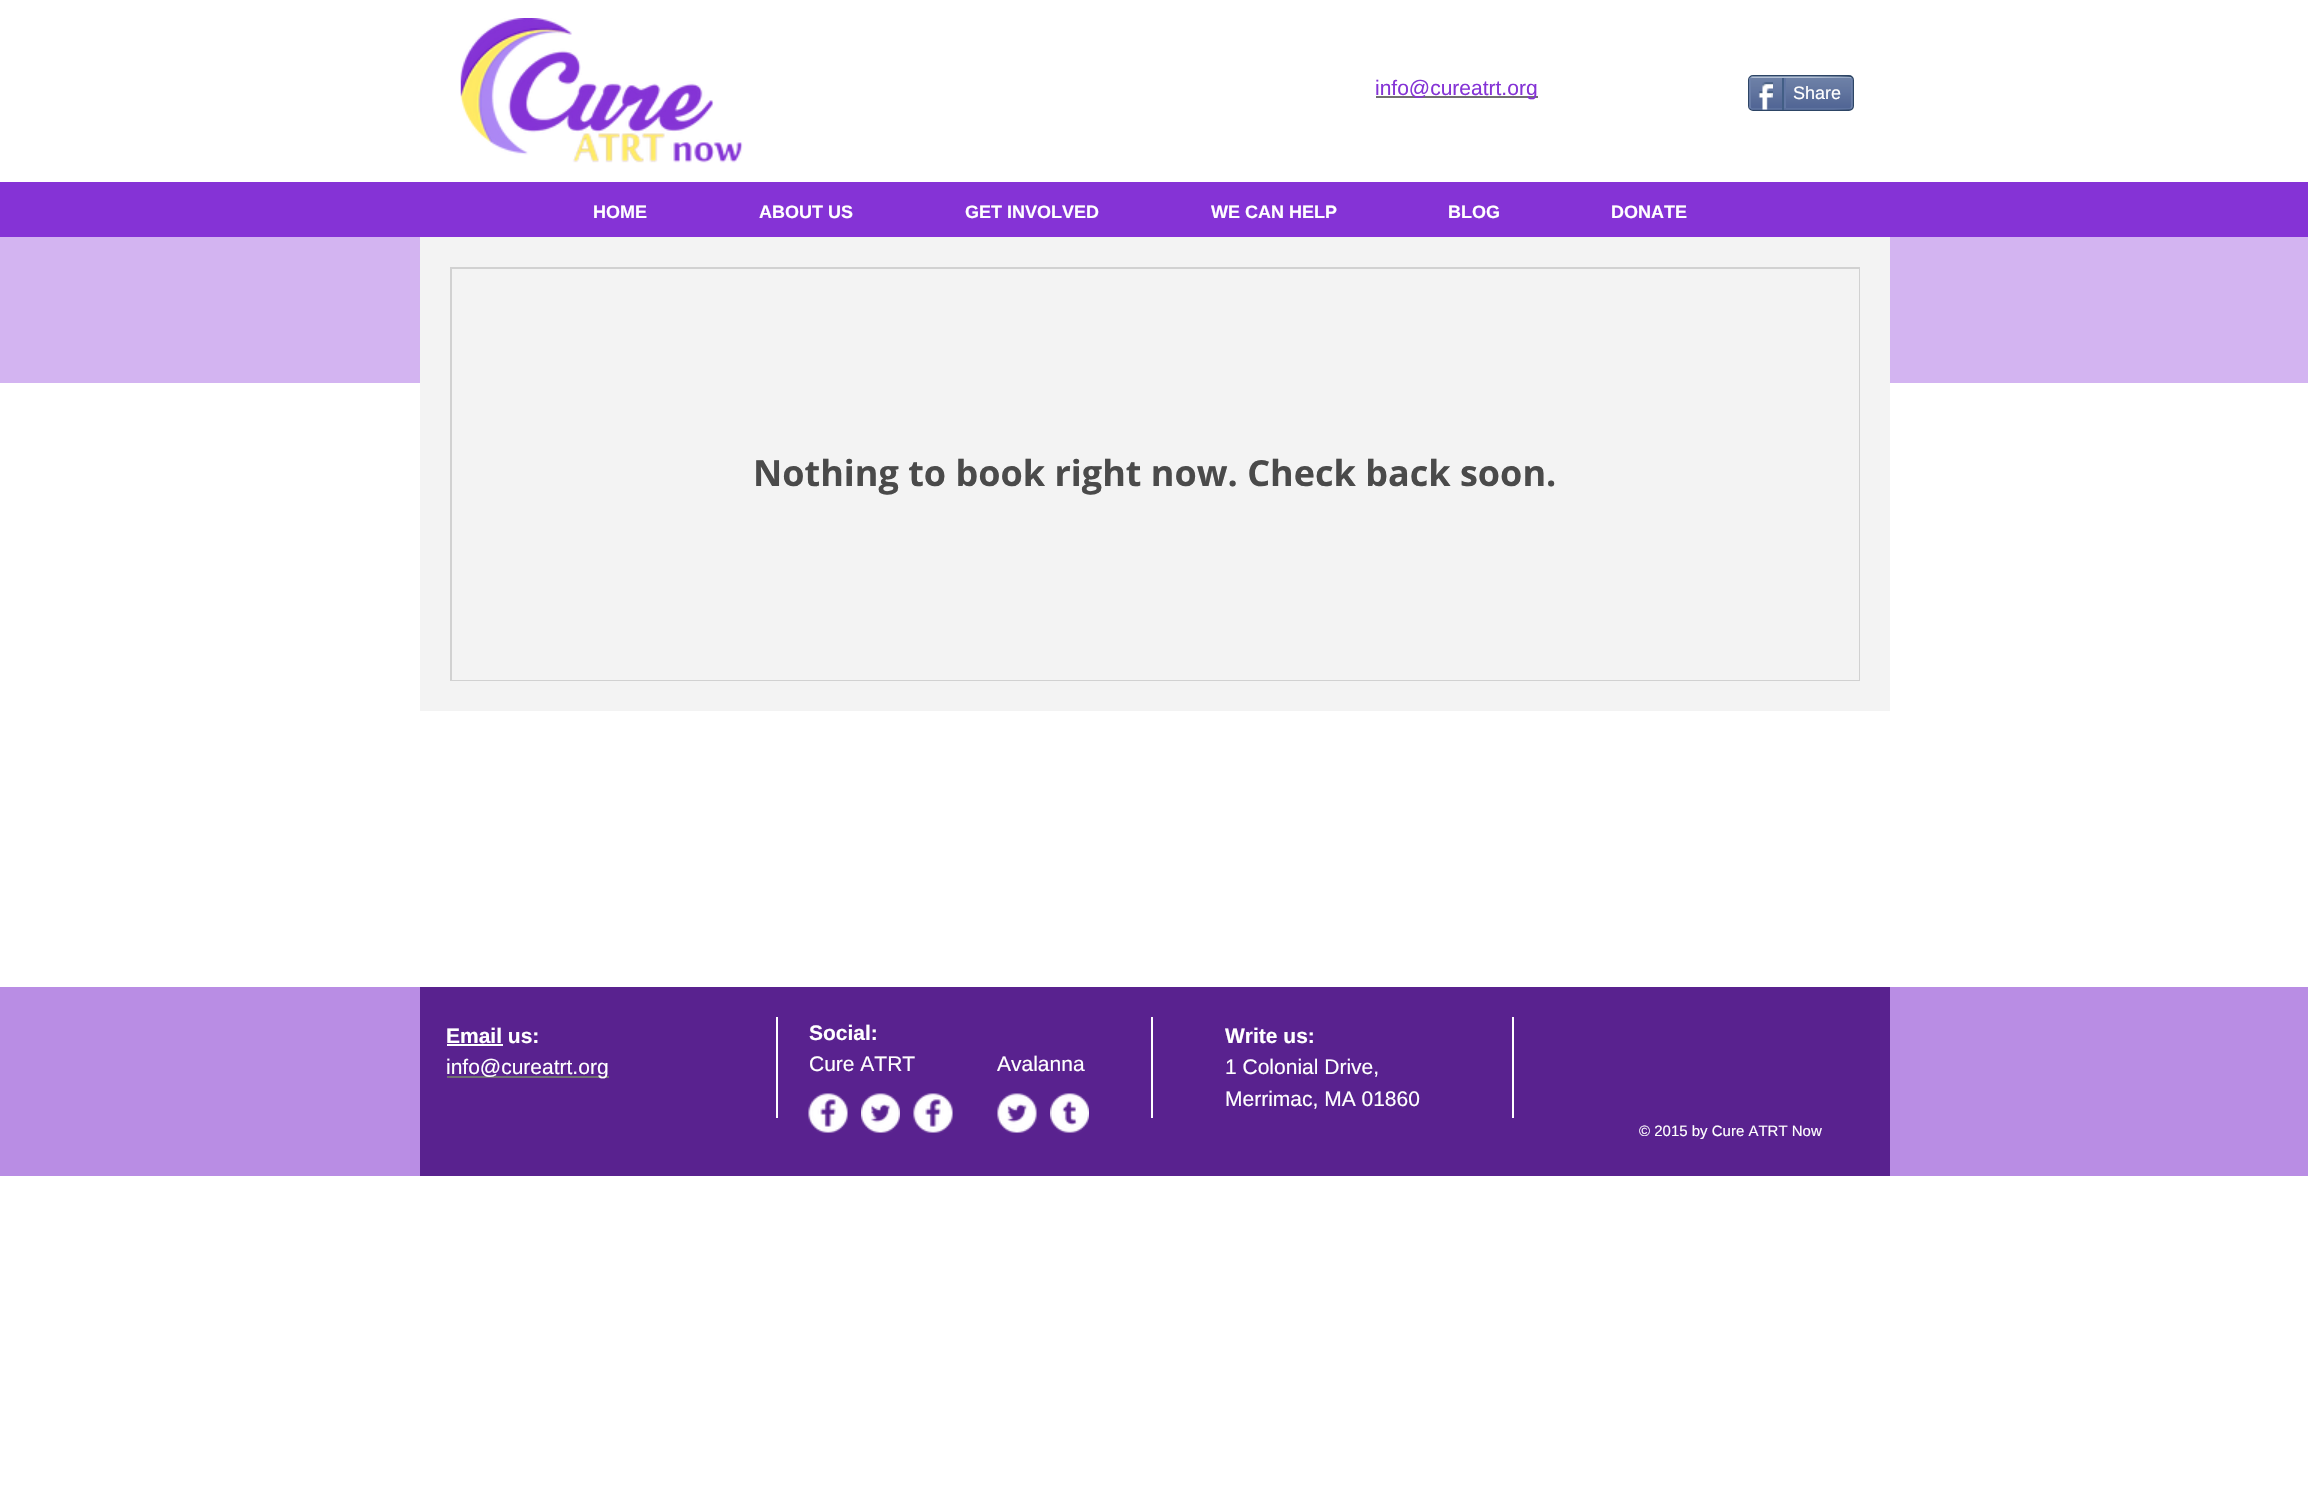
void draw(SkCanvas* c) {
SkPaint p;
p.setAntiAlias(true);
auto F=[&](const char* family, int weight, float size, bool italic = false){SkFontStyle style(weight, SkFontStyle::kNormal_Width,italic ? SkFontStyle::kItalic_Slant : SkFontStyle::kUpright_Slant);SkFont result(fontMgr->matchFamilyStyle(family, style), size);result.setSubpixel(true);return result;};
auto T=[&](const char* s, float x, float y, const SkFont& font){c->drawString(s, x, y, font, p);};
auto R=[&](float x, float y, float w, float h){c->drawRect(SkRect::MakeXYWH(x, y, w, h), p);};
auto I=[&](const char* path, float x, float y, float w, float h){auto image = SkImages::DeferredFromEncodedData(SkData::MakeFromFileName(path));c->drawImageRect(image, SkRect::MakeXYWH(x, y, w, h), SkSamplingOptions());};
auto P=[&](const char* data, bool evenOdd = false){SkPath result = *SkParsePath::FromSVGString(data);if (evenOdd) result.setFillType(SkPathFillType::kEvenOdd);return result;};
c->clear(0xffffffff);
I("1.png",460,18,283,145);
p.setColor(0xff717070);
R(1376,96,162,2);
auto f1 = F("Liberation Sans",400,21);
p.setColor(0xff8533d6);
T("info@cureatrt.org",1375,95,f1);
p.setStroke(true);
p.setStrokeWidth(2);
p.setColor(0xff2d4565);
c->drawRoundRect(SkRect::MakeXYWH(1749,76,104,34),4,4,p);
I("2.png",1749,78,104,32);
p.setStrokeWidth(1.5);
p.setColor(0xff9aabc6);
c->drawPath(P("M1750.5 78l1.5-1h16c8.5 0 81-.5 82.5 .5l.5 .5"),p);
p.setColor(0xff6f83ad);
c->drawPath(P("M1851 78c.5 .5 1 1 1 1.5v27c0 .5-.5 1-1 1.5"),p);
p.setColor(0xff6176a3);
c->drawPath(P("M1851 108l-.5 .5c-1.5 1-74 .5-82.5 .5h-16l-1.5-1"),p);
p.setColor(0xff6f83ad);
c->drawPath(P("M1750.5 108c-.5-.5-.5-1-.5-1.5v-27c0-.5 0-1 .5-1.5"),p);
I("3.png",1758,82,15,28);
p.setStroke(false);
p.setColor(0xff425e85);
R(1782,78,2,32);
auto f2 = F("Liberation Sans",400,18);
p.setColor(0xffffffff);
T("Share",1793,99,f2);
p.setColor(0xff6176a3);
R(1784,78,2,30);
p.setColor(0xff8533d6);
R(0,182,2308,55);
auto f3 = F("Liberation Sans",700,18);
p.setColor(0xffffffff);
T("HOME",593,218,f3);
T("ABOUT US",759,218,f3);
T("GET INVOLVED",965,218,f3);
T("WE CAN HELP",1211,218,f3);
T("BLOG",1448,218,f3);
T("DONATE",1611,218,f3);
p.setColor(0xffd3b4f1);
R(0,237,2308,146);
p.setColor(0xfff3f3f3);
R(420,237,1470,474);
p.setStroke(true);
p.setStrokeWidth(2);
p.setColor(0xffd1d1d1);
c->drawRect(SkRect::MakeXYWH(451,268,1408,412),p);
p.setStroke(false);
p.setColor(0xfff3f3f3);
R(452,269,1407,411);
auto f4 = F("Open Sans",700,36);
p.setColor(0xff4a4a4a);
T("Nothing to book right now. Check back soon.",753,486,f4);
p.setColor(0xffb98de4);
R(0,987,2308,189);
p.setColor(0xff59228f);
R(420,987,1470,189);
auto f5 = F("Liberation Sans",700,21);
p.setColor(0xffffffff);
T("Email us:",446,1043,f5);
R(447,1044,56,2);
p.setColor(0xff717070);
R(447,1076,162,2);
p.setColor(0xffffffff);
T("info@cureatrt.org",446,1074,f1);
R(776,1017,2,101);
T("Social:",809,1040,f5);
T("Cure ATRT",809,1071,f1);
T("Avalanna",997,1071,f1);
R(1151,1017,2,101);
T("Write us:",1225,1043,f5);
T("1 Colonial Drive,",1225,1074,f1);
T("Merrimac, MA 01860",1225,1106,f1);
R(1512,1017,2,101);
I("4.png",808,1093,40,40);
I("5.png",861,1093,39,40);
I("4.png",913,1093,40,40);
I("6.png",997,1093,40,40);
I("7.png",1050,1093,39,40);
auto f6 = F("Liberation Sans",400,15);
T("© 2015 by Cure ATRT Now",1639,1136,f6);
}
